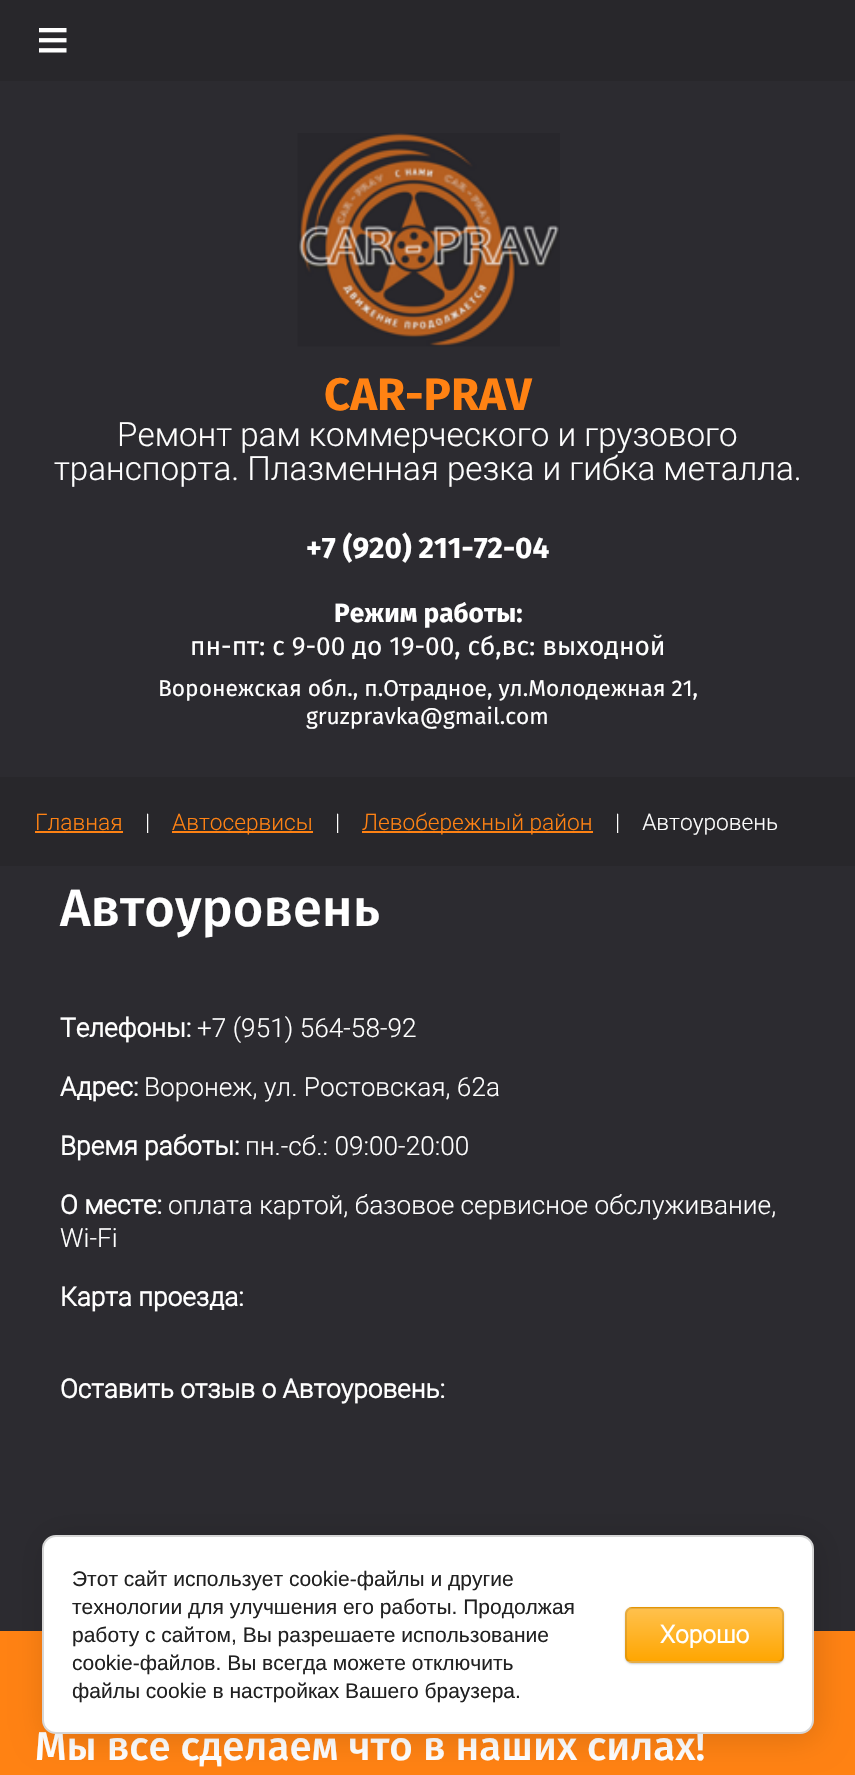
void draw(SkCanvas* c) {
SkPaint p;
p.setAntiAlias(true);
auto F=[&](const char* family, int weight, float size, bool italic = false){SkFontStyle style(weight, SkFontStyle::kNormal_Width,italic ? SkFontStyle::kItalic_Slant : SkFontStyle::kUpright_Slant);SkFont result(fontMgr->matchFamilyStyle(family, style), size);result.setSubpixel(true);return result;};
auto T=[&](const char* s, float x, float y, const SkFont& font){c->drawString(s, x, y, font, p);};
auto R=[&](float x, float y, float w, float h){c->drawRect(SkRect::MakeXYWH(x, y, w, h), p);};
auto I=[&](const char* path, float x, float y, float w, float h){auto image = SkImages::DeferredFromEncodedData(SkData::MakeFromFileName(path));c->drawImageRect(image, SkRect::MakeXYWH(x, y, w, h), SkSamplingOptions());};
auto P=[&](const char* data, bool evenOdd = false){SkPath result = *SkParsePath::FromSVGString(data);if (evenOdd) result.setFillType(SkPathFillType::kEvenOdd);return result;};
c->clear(0xff28272b);
I("1.png",39,28,28,25);
p.setColor(0xff2c2b30);
R(0,81,855,696);
I("2.png",297,133,263,214);
auto f1 = F("Fira Sans",700,45.5);
p.setColor(0xffff8213);
T("CAR-PRAV",324,410,f1);
auto f2 = F("Roboto",300,33.25);
p.setColor(0xffffffff);
T("Ремонт рам коммерческого и грузового",117,446,f2);
T("транспорта. Плазменная резка и гибка металла.",54,480,f2);
auto f3 = F("Fira Sans",700,29.75);
T("+7 (920) 211-72-04",306,558,f3);
auto f4 = F("Fira Sans",700,26.25);
T("Режим работы:",334,622,f4);
auto f5 = F("Fira Sans",400,26.25);
T("пн-пт: с 9-00 до 19-00, сб,вс: выходной",190,655,f5);
auto f6 = F("Fira Sans",400,22.75);
T("Воронежская обл., п.Отрадное, ул.Молодежная 21,",158,696,f6);
T("gruzpravka@gmail.com",306,724,f6);
auto f7 = F("Roboto",300,22.75);
p.setColor(0xffff8213);
T("Главная",35,830,f7);
R(35,831,88,2);
p.setColor(0xffffffff);
T("|",145,830,f7);
p.setColor(0xffff8213);
R(172,831,141,2);
T("Автосервисы",172,830,f7);
p.setColor(0xffffffff);
T("|",335,830,f7);
p.setColor(0xffff8213);
R(362,831,231,2);
T("Левобережный район",362,830,f7);
p.setColor(0xffffffff);
T("|    Автоуровень",615,830,f7);
p.setColor(0xff2c2b30);
R(0,866,855,765);
auto f8 = F("Fira Sans",500,52.5);
p.setColor(0xffffffff);
T("Автоуровень",60,926,f8);
auto f9 = F("Roboto",700,26.25);
T("Телефоны:",60,1037,f9);
auto f10 = F("Roboto",300,26.25);
T("+7 (951) 564-58-92",197,1037,f10);
T("Адрес:",60,1096,f9);
T("Воронеж, ул. Ростовская, 62а",144,1096,f10);
T("Время работы:",60,1155,f9);
T("пн.-сб.: 09:00-20:00",245,1155,f10);
T("О месте:",60,1214,f9);
T("оплата картой, базовое сервисное обслуживание,",168,1214,f10);
T("Wi-Fi",60,1247,f10);
T("Карта проезда:",60,1306,f9);
T("Оставить отзыв о Автоуровень:",60,1398,f9);
p.setColor(0xffff8213);
R(0,1631,855,144);
auto f11 = F("Fira Sans",500,40.25);
p.setColor(0xffffffff);
T("Мы всё сделаем что в наших силах!",35,1760,f11);
p.setColor(0x24000000);
p.setMaskFilter(SkMaskFilter::MakeBlur(kNormal_SkBlurStyle, 16));
c->drawRoundRect(SkRect::MakeXYWH(46,1538,771,200),14,14,p);
p.setMaskFilter(nullptr);
p.setColor(0xffffffff);
c->drawRoundRect(SkRect::MakeXYWH(43,1536,770,197),13,13,p);
p.setStroke(true);
p.setStrokeWidth(2);
p.setColor(0xffd6d6d6);
c->drawRoundRect(SkRect::MakeXYWH(43,1536,770,197),13,13,p);
auto f12 = F("Liberation Sans",400,21);
p.setStroke(false);
p.setColor(0xff212121);
T("Этот сайт использует cookie-файлы и другие",72,1586,f12);
T("технологии для улучшения его работы. Продолжая",72,1614,f12);
T("работу с сайтом, Вы разрешаете использование",72,1642,f12);
T("cookie-файлов. Вы всегда можете отключить",72,1670,f12);
T("файлы cookie в настройках Вашего браузера.",72,1698,f12);
p.setColor(0x33000000);
p.setMaskFilter(SkMaskFilter::MakeBlur(kNormal_SkBlurStyle, 1));
c->drawRoundRect(SkRect::MakeXYWH(625,1608,159,56),7,7,p);
p.setMaskFilter(nullptr);
c->save();
c->clipPath(P("M632 1607h145c4 0 7 3 7 7v42c0 4-3 7-7 7h-145c-4 0-7-3-7-7v-42c0-4 3-7 7-7z"),true);
{
const SkColor colors[] = {0xffffc14e,0xffffa601};
const float stops[] = {0,1};
const SkPoint ends[] = {{704,1556}, {704,1608}};
p.setShader(SkGradientShader::MakeLinear(ends, colors, stops, 2, SkTileMode::kClamp));
p.setAlpha(255);
}
R(625,1607,159,1);
{
const SkColor colors[] = {0xffffc14e,0xffffa601};
const float stops[] = {0,1};
const SkPoint ends[] = {{704,1608}, {704,1661}};
p.setShader(SkGradientShader::MakeLinear(ends, colors, stops, 2, SkTileMode::kClamp));
p.setAlpha(255);
}
R(625,1608,159,53);
{
const SkColor colors[] = {0xffffc14e,0xffffa601};
const float stops[] = {0,1};
const SkPoint ends[] = {{704,1661}, {704,1713}};
p.setShader(SkGradientShader::MakeLinear(ends, colors, stops, 2, SkTileMode::kClamp));
p.setAlpha(255);
}
R(625,1661,159,2);
c->restore();
p.setStroke(true);
p.setShader(nullptr);
p.setColor(0x1a000000);
c->drawRoundRect(SkRect::MakeXYWH(626,1608,157,54),6,6,p);
auto f13 = F("Roboto",700,24.5);
p.setStroke(false);
p.setColor(0xffffffff);
T("Хорошо",660,1643,f13);
}
